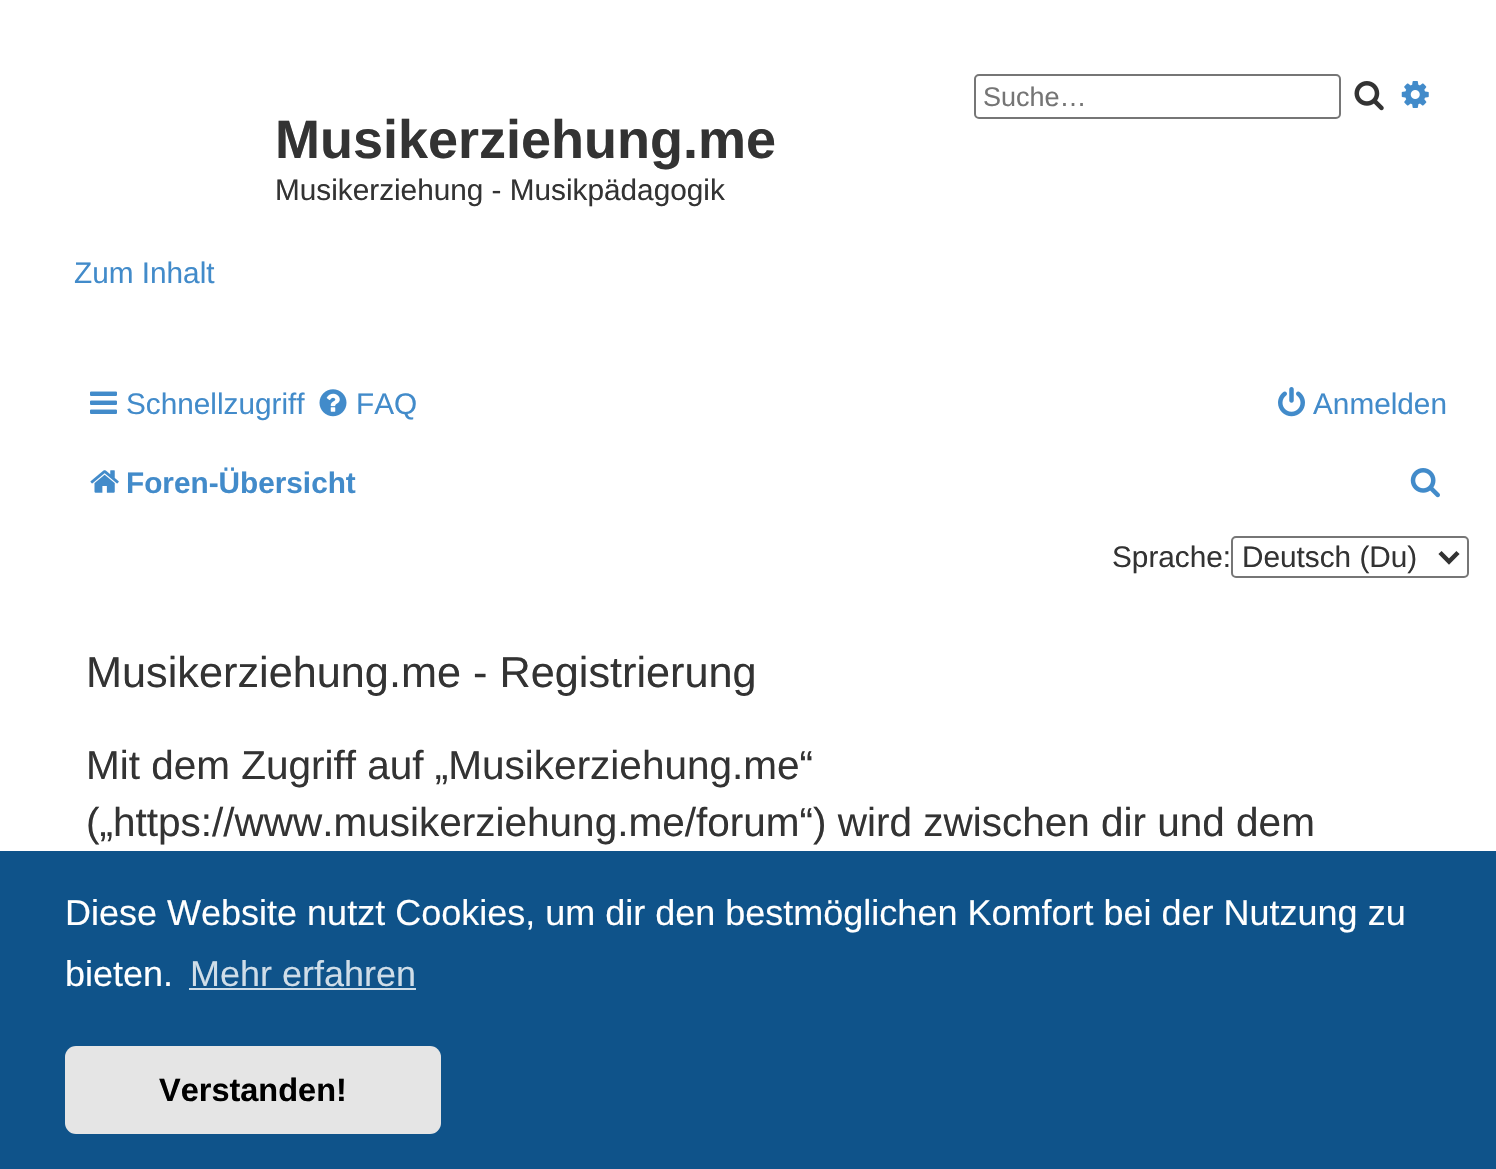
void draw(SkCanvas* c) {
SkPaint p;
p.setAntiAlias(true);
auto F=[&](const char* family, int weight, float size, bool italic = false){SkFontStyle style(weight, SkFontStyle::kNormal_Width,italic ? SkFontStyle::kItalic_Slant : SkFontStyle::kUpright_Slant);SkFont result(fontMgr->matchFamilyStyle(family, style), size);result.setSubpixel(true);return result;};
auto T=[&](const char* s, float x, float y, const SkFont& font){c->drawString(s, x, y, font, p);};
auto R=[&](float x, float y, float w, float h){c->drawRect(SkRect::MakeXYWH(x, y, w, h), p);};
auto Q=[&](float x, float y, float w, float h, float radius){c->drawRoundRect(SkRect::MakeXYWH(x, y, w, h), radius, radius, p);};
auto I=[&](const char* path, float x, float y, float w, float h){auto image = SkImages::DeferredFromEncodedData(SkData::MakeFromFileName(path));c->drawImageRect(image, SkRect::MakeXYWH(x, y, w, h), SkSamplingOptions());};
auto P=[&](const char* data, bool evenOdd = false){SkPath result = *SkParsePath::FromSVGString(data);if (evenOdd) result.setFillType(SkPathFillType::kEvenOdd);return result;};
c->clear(0xffffffff);
p.setStroke(true);
p.setStrokeWidth(2);
p.setColor(0xff767676);
c->drawRoundRect(SkRect::MakeXYWH(975,75,365,43),4,4,p);
auto f1 = F("Liberation Sans",400,27);
p.setStroke(false);
p.setColor(0xff757575);
T("Suche…",983,106,f1);
I("1.png",1354,81,30,30);
I("2.png",1401,81,28,27);
auto f2 = F("Liberation Sans",700,54);
p.setColor(0xff333333);
T("Musikerziehung.me",275,158,f2);
auto f3 = F("Liberation Sans",400,29.75);
T("Musikerziehung - Musikpädagogik",275,200,f3);
p.setColor(0xff428bca);
T("Zum Inhalt",74,283,f3);
I("3.png",90,391,27,23);
T("Schnellzugriff",126,414,f3);
I("4.png",319,389,28,28);
T("FAQ",356,414,f3);
I("5.png",1278,387,27,30);
T("Anmelden",1313,414,f3);
I("6.png",90,470,29,23);
auto f4 = F("Liberation Sans",700,29.75);
T("Foren-Übersicht",126,493,f4);
I("7.png",1410,468,30,30);
p.setColor(0xff333333);
T("Sprache:",1112,567,f3);
p.setStroke(true);
p.setColor(0xff767676);
c->drawRoundRect(SkRect::MakeXYWH(1232,537,236,40),4,4,p);
p.setStrokeWidth(4.5);
p.setColor(0xff333333);
c->drawPath(P("M1440 552.5l9 9l9-9"),p);
p.setStroke(false);
T("Deutsch (Du)",1242,567,f3);
auto f5 = F("Liberation Sans",400,43.25);
T("Musikerziehung.me - Registrierung",86,687,f5);
auto f6 = F("Liberation Sans",400,40.5);
T("Mit dem Zugriff auf „Musikerziehung.me“",86,779,f6);
T("(„https://www.musikerziehung.me/forum“) wird zwischen dir und dem",86,836,f6);
p.setColor(0xff0f538a);
R(0,851,1496,318);
auto f7 = F("Liberation Sans",400,36);
p.setColor(0xffffffff);
T("Diese Website nutzt Cookies, um dir den bestmöglichen Komfort bei der Nutzung zu",65,925,f7);
T("bieten.",65,986,f7);
p.setColor(0xffcfdde8);
T("Mehr erfahren",190,986,f7);
R(189,988,227,2);
p.setColor(0xffe5e5e5);
Q(65,1046,376,88,11);
auto f8 = F("Liberation Sans",700,32.5);
p.setColor(0xff000000);
T("Verstanden!",159,1101,f8);
}
